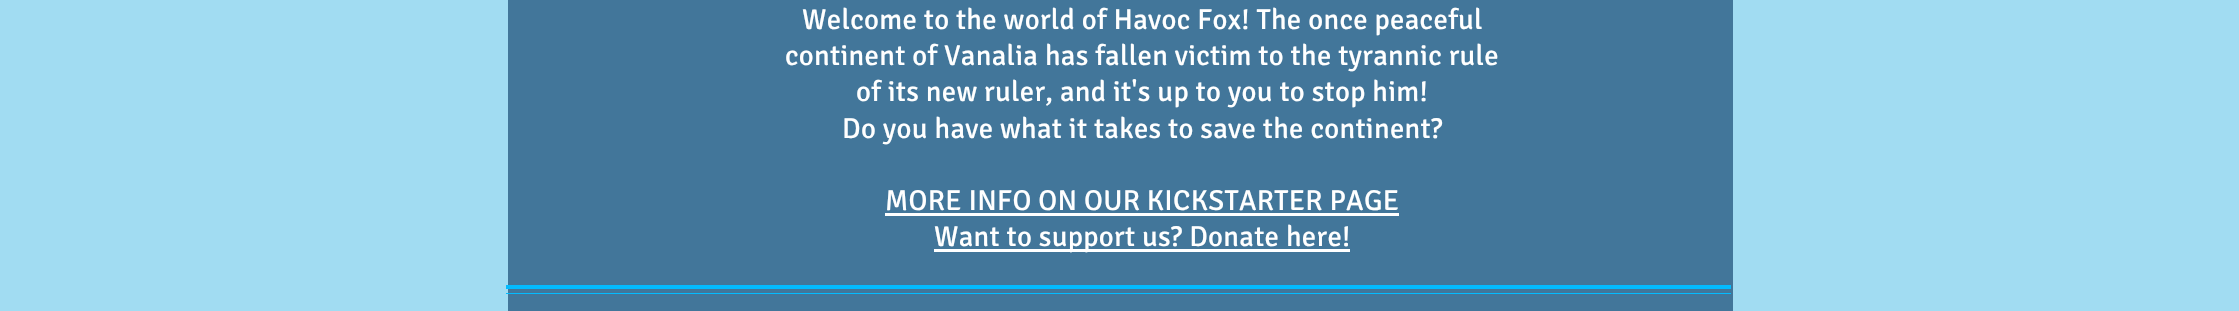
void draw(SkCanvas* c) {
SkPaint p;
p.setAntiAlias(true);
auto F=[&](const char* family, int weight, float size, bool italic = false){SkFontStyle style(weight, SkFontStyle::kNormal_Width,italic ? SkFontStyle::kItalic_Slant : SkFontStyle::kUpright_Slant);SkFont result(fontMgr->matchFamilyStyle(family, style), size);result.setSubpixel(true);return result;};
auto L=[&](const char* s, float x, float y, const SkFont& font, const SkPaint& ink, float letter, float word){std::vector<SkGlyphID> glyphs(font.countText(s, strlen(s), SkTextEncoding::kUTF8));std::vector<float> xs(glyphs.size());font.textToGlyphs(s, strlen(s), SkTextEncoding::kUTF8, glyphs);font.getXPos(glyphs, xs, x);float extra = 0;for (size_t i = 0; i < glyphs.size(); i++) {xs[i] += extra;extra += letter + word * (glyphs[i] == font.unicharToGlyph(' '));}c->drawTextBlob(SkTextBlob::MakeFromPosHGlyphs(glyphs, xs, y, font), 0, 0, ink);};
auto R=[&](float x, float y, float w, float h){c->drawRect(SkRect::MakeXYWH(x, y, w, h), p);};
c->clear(0xffa1dcf2);
p.setColor(0xff42769a);
R(508,0,1225,311);
auto f1 = F("Signika",400,28.75);
p.setColor(0xffffffff);
L("Welcome to the world of Havoc Fox! The once peaceful",802,29,f1,p,.3,0);
L("continent of Vanalia has fallen victim to the tyrannic rule",785,65,f1,p,.3,0);
L("of its new ruler, and it's up to you to stop him!",856,101,f1,p,.3,0);
L("Do you have what it takes to save the continent?",842,138,f1,p,.3,0);
L("MORE INFO ON OUR KICKSTARTER PAGE",885,210,f1,p,.3,0);
R(885,213,514,3);
R(934,249,416,3);
L("Want to support us? Donate here!",934,246,f1,p,.3,0);
p.setColor(0xff03bbff);
R(506,285,1225,4);
R(506,293,1225,1);
}
